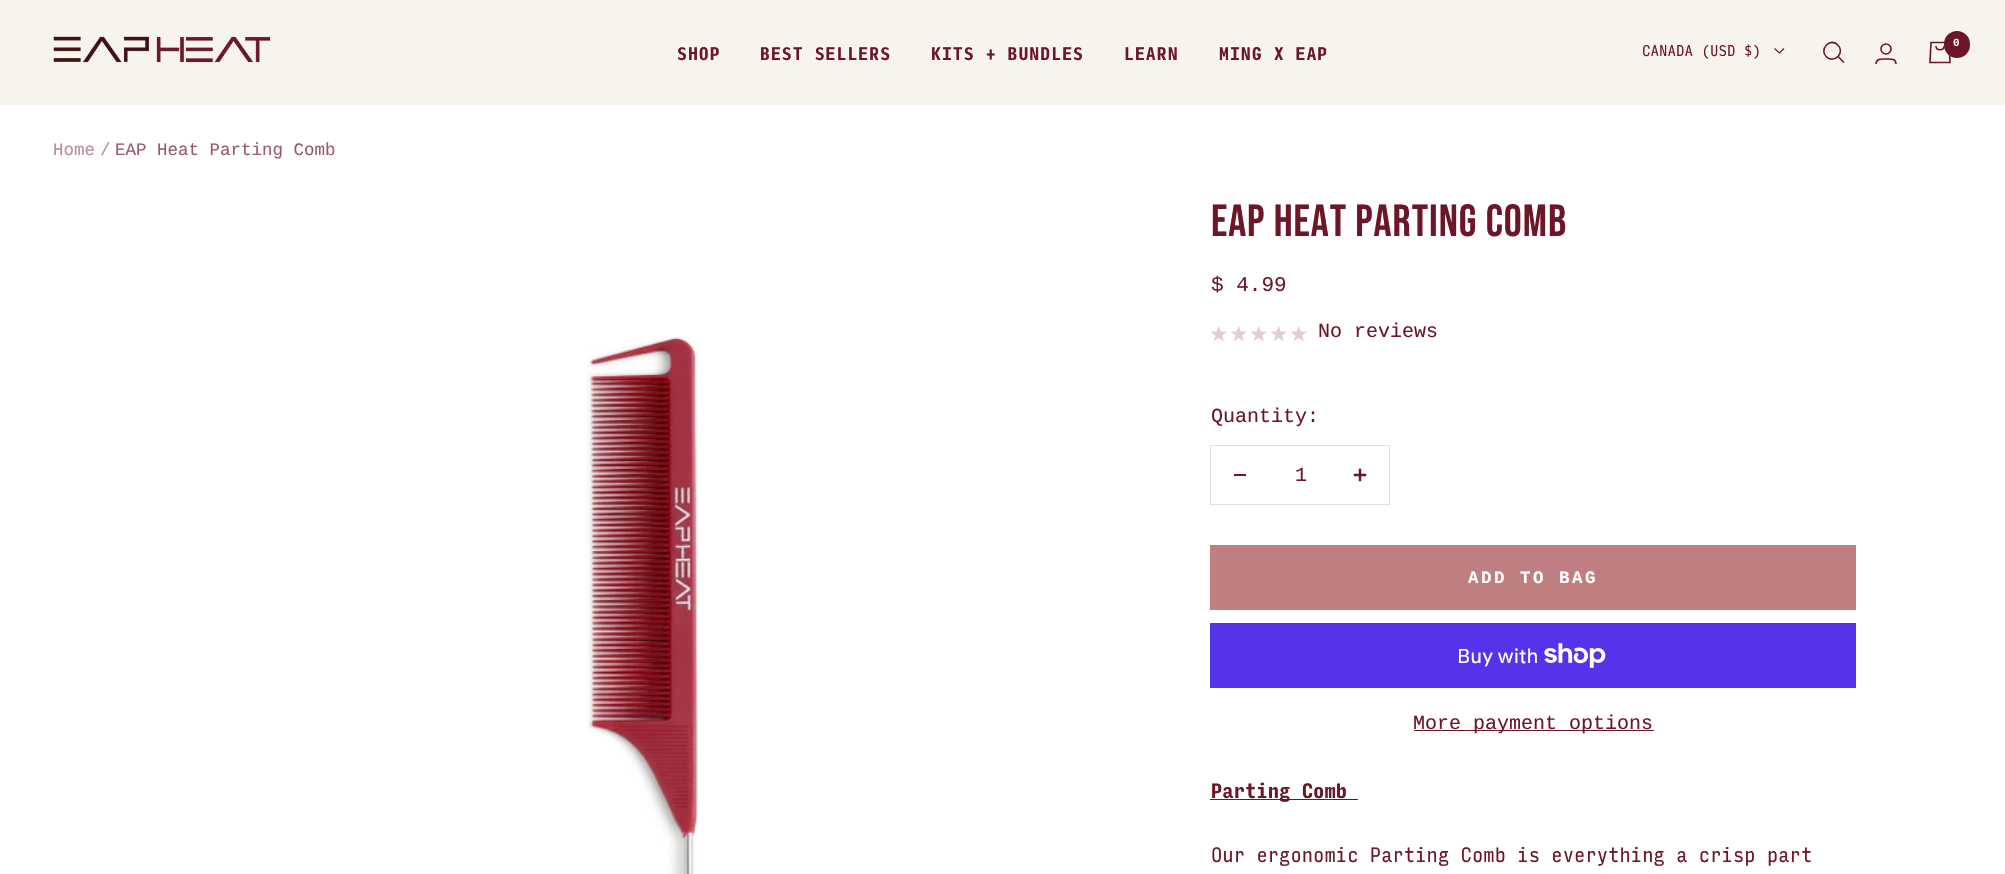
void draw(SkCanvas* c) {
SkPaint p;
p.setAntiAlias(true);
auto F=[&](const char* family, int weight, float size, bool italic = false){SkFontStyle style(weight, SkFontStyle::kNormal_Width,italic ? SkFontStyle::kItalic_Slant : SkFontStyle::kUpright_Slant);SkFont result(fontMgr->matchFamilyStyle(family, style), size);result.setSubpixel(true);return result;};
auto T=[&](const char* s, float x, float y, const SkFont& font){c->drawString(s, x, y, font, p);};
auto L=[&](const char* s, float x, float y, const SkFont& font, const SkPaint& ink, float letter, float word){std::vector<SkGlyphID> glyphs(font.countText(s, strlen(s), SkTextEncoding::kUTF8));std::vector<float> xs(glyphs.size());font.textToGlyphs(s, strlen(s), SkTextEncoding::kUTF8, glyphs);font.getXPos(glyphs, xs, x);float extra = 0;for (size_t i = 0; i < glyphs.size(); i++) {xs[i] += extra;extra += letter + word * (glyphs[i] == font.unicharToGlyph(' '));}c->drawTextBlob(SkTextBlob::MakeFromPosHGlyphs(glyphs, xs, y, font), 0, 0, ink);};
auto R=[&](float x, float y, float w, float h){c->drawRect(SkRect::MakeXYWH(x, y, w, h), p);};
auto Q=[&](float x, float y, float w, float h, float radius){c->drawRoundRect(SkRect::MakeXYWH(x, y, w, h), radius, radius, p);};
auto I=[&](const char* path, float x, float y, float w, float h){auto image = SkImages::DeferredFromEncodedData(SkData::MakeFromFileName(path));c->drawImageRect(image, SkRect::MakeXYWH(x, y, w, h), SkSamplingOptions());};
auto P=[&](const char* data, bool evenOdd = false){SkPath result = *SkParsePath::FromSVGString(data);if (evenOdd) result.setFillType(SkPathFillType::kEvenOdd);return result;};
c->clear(0xffffffff);
p.setColor(0xfff6f4eb);
R(0,0,2005,105);
I("1.png",53,36,218,27);
auto f1 = F("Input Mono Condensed",700,17.5);
p.setColor(0xff6c1628);
L("SHOP",677,60,f1,p,1,0);
L("BEST SELLERS",760,60,f1,p,1,0);
L("KITS + BUNDLES",931,60,f1,p,1,0);
L("LEARN",1124,60,f1,p,1,0);
L("MING X EAP",1219,60,f1,p,1,0);
p.setStroke(true);
p.setStrokeWidth(1.6);
c->drawPath(P("M1838 56.5c7.5-7.5-4-19.5-11.5-11.5c-8 8 3.5 19.5 11.5 11.5zm0 0l6 6"),p);
c->drawCircle(1886,49,5,p);
c->drawPath(P("M1876 64c0-6 6.5-5 10-5c4 0 10-1 10 5"),p);
c->drawPath(P("M1931 42.5h18l1 20h-20zm5 3.5c0 5 8 5 8 0"),p);
p.setStroke(false);
Q(1944,31,26,27,13);
auto f2 = F("Liberation Mono",700,11);
p.setColor(0xfff6f4eb);
T("0",1953,46,f2);
auto f3 = F("Input Mono Condensed",400,15);
p.setColor(0xff6c1628);
T("CANADA (USD $)",1642,56,f3);
p.setStroke(true);
p.setStrokeWidth(1.2);
c->drawPath(P("M1774.5 48.5l5 4.5l4.5-4.5"),p);
auto f4 = F("Liberation Mono",400,17.5);
p.setStroke(false);
p.setColor(0xffb78d96);
T("Home",53,155,f4);
T("/",100,155,f4);
p.setColor(0xff985c69);
T("EAP Heat Parting Comb",115,155,f4);
I("2.png",585,336,113,538);
auto f5 = F("Bebas Neue",700,45);
p.setColor(0xff6c1628);
L("EAP HEAT PARTING COMB",1211,236,f5,p,1,0);
auto f6 = F("Liberation Mono",400,21);
T("$ 4.99",1211,291,f6);
I("3.png",1210,326,17,16);
I("3.png",1230,326,17,16);
I("3.png",1250,326,17,16);
I("3.png",1270,326,17,16);
I("3.png",1290,326,17,16);
auto f7 = F("Liberation Mono",400,20);
T("No reviews",1318,337,f7);
T("Quantity:",1211,422,f7);
p.setStroke(true);
p.setStrokeWidth(1);
p.setColor(0xffe9dcdf);
c->drawRect(SkRect::MakeXYWH(1210.5,445.5,179,59),p);
p.setStroke(false);
p.setColor(0xff6c1628);
R(1234,474,12,2);
T("1",1295,481,f7);
I("4.png",1353,468,14,14);
p.setColor(0xffbf7f81);
R(1210,545,646,65);
auto f8 = F("Liberation Mono",700,17.5);
p.setColor(0xffffffff);
L("ADD TO BAG",1468,583,f8,p,2.5,0);
p.setColor(0xff5433eb);
R(1210,623,646,65);
auto f9 = F("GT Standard",400,20);
p.setColor(0xffffffff);
T("Buy with",1457,663,f9);
I("5.png",1544,643,62,25);
p.setColor(0xff6c1628);
R(1414,730,240,1);
T("More payment options",1413,729,f7);
R(1210,799,148,1);
auto f10 = F("Input Mono Condensed",700,20);
T("Parting Comb",1211,798,f10);
auto f11 = F("Input Mono Condensed",400,20);
T("Our ergonomic Parting Comb is everything a crisp part",1211,862,f11);
}
